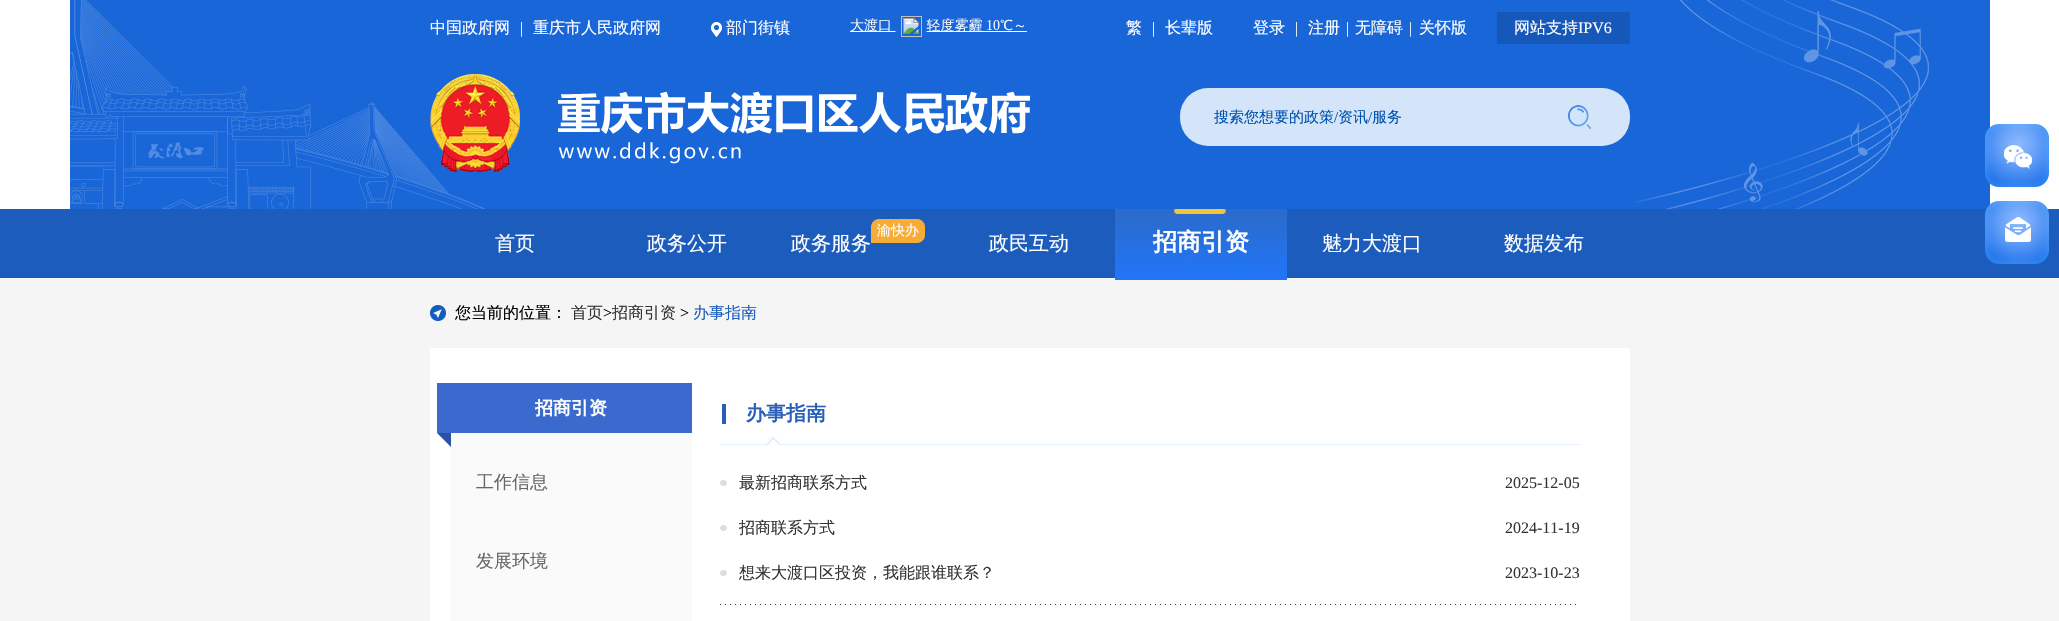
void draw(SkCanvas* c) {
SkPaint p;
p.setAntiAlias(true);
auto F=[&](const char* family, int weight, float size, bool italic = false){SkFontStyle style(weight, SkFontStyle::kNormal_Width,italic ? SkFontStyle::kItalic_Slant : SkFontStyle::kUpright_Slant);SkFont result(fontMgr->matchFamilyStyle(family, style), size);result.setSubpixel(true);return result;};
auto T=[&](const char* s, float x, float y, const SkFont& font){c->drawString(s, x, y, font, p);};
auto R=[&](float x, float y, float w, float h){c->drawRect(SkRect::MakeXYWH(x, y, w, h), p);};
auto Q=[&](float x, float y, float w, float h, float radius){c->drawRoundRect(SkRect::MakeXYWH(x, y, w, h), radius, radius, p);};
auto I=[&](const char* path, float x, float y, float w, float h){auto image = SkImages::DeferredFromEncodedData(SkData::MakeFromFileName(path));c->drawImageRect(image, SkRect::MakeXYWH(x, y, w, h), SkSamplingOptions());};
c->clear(0xffffffff);
I("1.png",70,0,1920,209);
auto f1 = F("WenQuanYi Zen Hei",500,16);
p.setColor(0xffffffff);
T("中国政府网",430,33,f1);
auto f2 = F("Liberation Serif",400,16);
T("|",520,33,f2);
T("重庆市人民政府网",533,33,f1);
I("2.png",711,22,11,15);
T("部门街镇",726,33,f1);
I("3.png",850,16,177,21);
T("繁",1126,33,f1);
T("|",1152,33,f2);
T("长辈版",1165,33,f1);
T("登录",1253,33,f1);
T("|",1295,33,f2);
T("注册",1308,33,f1);
T("|",1346,33,f2);
T("无障碍",1355,33,f1);
T("|",1409,33,f2);
T("关怀版",1419,33,f1);
p.setColor(0xff1658ba);
R(1497,12,133,32);
p.setColor(0xffffffff);
T("网站支持",1514,33,f1);
T("IPV6",1578,33,f2);
I("4.png",430,74,600,98);
p.setColor(0xffd4e5f9);
Q(1180,88,450,58,28);
c->save();
c->clipRect(SkRect::MakeXYWH(1214,108,336,19));
auto f3 = F("WenQuanYi Zen Hei",500,15);
p.setColor(0xff0050af);
T("搜索您想要的政策",1214,122,f3);
c->restore();
auto f4 = F("Liberation Serif",400,15);
T("/",1334,122,f4);
T("资讯",1338,122,f3);
T("/",1368,122,f4);
T("服务",1372,122,f3);
I("5.png",1568,105,23,24);
p.setColor(0xff1b5cbd);
R(0,209,2059,69);
auto f5 = F("WenQuanYi Zen Hei",500,20);
p.setColor(0xffffffff);
T("首页",495,250,f5);
T("政务公开",647,250,f5);
I("6.png",871,219,54,24);
auto f6 = F("WenQuanYi Zen Hei",500,14);
T("渝快办",877,235,f6);
T("政务服务",791,250,f5);
T("政民互动",989,250,f5);
p.setColor(0xfff5f5f5);
R(0,278,2059,343);
I("7.png",1115,209,172,71);
auto f7 = F("WenQuanYi Zen Hei",700,24);
p.setColor(0xffffffff);
T("招商引资",1153,250,f7);
T("魅力大渡口",1322,250,f5);
T("数据发布",1504,250,f5);
I("8.png",1985,124,64,63);
I("9.png",1985,201,64,63);
I("10.png",430,305,16,16);
p.setColor(0xff000000);
T("您当前的位置：",455,318,f1);
p.setColor(0xff333333);
T("首页",571,318,f1);
p.setColor(0xff000000);
T(">",603,318,f2);
p.setColor(0xff333333);
T("招商引资",612,318,f1);
p.setColor(0xff000000);
T(">",680,318,f2);
p.setColor(0xff1b5cbd);
T("办事指南",693,318,f1);
p.setColor(0xffffffff);
R(430,348,1200,273);
p.setColor(0xfffafafa);
R(450,433,242,188);
I("11.png",437,383,255,64);
auto f8 = F("WenQuanYi Zen Hei",700,18);
p.setColor(0xffffffff);
T("招商引资",535,414,f8);
auto f9 = F("WenQuanYi Zen Hei",500,18);
p.setColor(0xff666666);
T("工作信息",476,488,f9);
T("发展环境",476,567,f9);
p.setColor(0xff285fb9);
R(722,404,4,20);
p.setColor(0xffe7f0ff);
R(720,444,860,1);
auto f10 = F("WenQuanYi Zen Hei",700,20);
p.setColor(0xff285fb9);
T("办事指南",746,420,f10);
I("12.png",767,437,13,8);
I("13.png",720,604,856,1);
I("14.png",720,480,7,6);
p.setColor(0xff333333);
T("最新招商联系方式",739,488,f1);
T("2025-12-05",1505,488,f2);
I("14.png",720,525,7,6);
c->save();
c->clipRect(SkRect::MakeXYWH(739,507,96,42));
T("招商联系方式",739,533,f1);
c->restore();
T("2024-11-19",1505,533,f2);
I("14.png",720,570,7,6);
T("想来大渡口区投资，我能跟谁联系？",739,578,f1);
T("2023-10-23",1505,578,f2);
}
